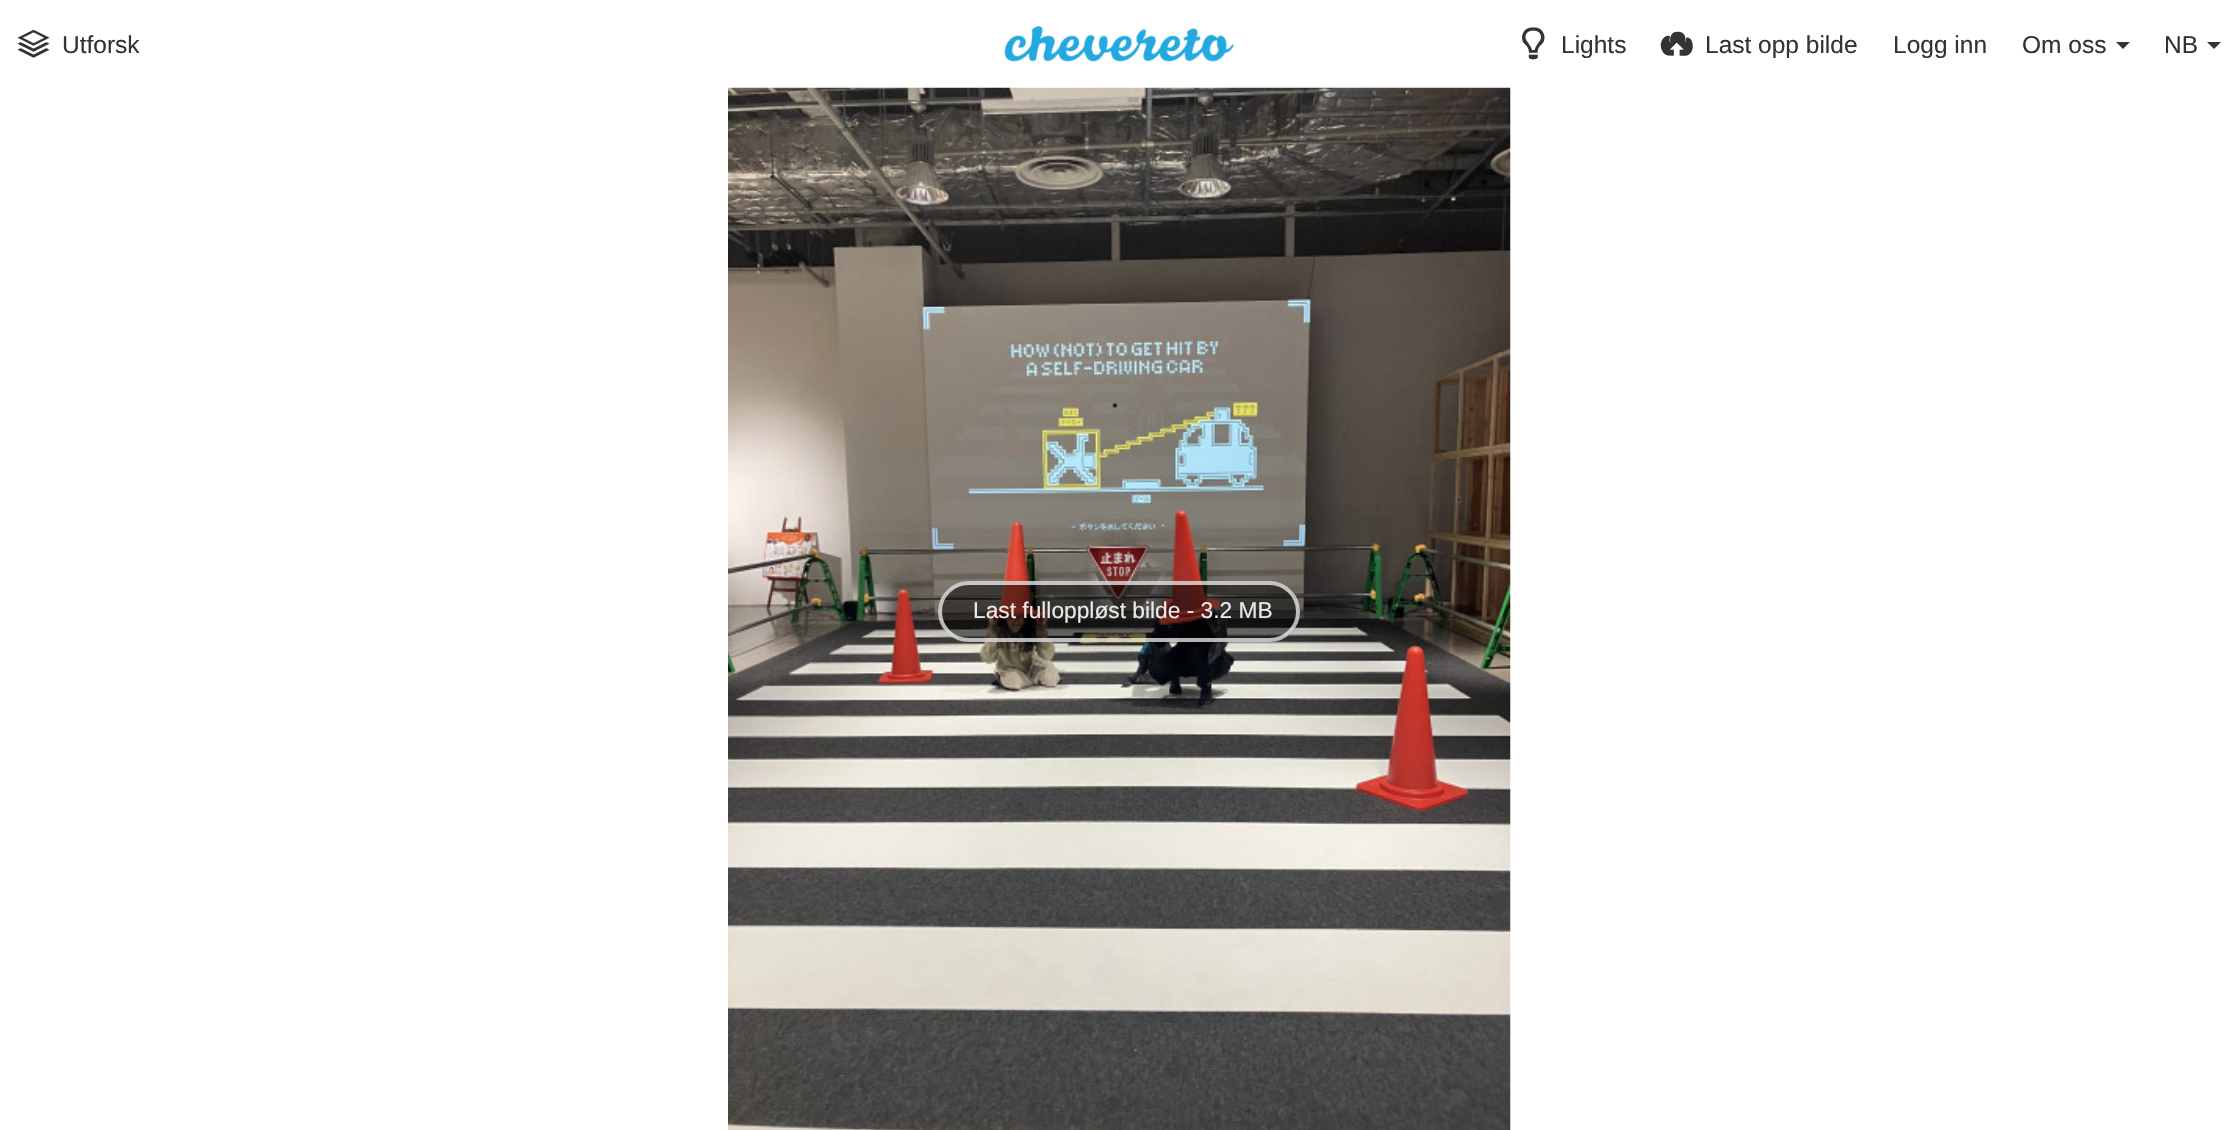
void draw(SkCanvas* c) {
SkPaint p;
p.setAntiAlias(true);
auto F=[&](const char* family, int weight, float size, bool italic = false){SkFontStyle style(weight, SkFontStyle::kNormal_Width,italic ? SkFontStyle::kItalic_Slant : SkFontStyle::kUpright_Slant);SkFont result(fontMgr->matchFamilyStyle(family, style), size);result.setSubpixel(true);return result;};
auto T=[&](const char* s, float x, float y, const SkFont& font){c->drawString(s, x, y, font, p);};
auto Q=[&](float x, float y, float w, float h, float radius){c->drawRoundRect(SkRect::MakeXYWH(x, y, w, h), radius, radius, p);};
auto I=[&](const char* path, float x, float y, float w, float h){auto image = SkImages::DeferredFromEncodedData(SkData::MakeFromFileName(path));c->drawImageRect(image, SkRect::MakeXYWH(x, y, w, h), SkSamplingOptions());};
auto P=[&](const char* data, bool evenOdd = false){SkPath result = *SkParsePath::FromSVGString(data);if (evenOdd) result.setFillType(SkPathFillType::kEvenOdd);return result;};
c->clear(0xffffffff);
I("1.png",17,29,33,29);
auto f1 = F("Liberation Sans",400,24.5);
p.setColor(0xff333333);
T("Utforsk",62,53,f1);
I("2.png",1004,26,230,36);
I("3.png",1522,27,23,33);
T("Lights",1561,53,f1);
I("4.png",1660,31,33,25);
T("Last opp bilde",1705,53,f1);
T("Logg inn",1893,53,f1);
T("Om oss",2022,53,f1);
c->drawPath(P("M2116 42h14l-7 7z"),p);
T("NB",2164,53,f1);
c->drawPath(P("M2207 42h14l-7 7z"),p);
I("5.png",728,87,783,1043);
p.setColor(0x80000000);
Q(938,581,362,61,30.5);
p.setStroke(true);
p.setStrokeWidth(4);
p.setColor(0xb3ffffff);
c->drawRoundRect(SkRect::MakeXYWH(940,583,358,57),28.5,28.5,p);
auto f2 = F("Liberation Sans",400,22.75);
p.setStroke(false);
p.setColor(0xffebeae9);
T("Last fulloppløst bilde - 3.2 MB",973,618,f2);
}
